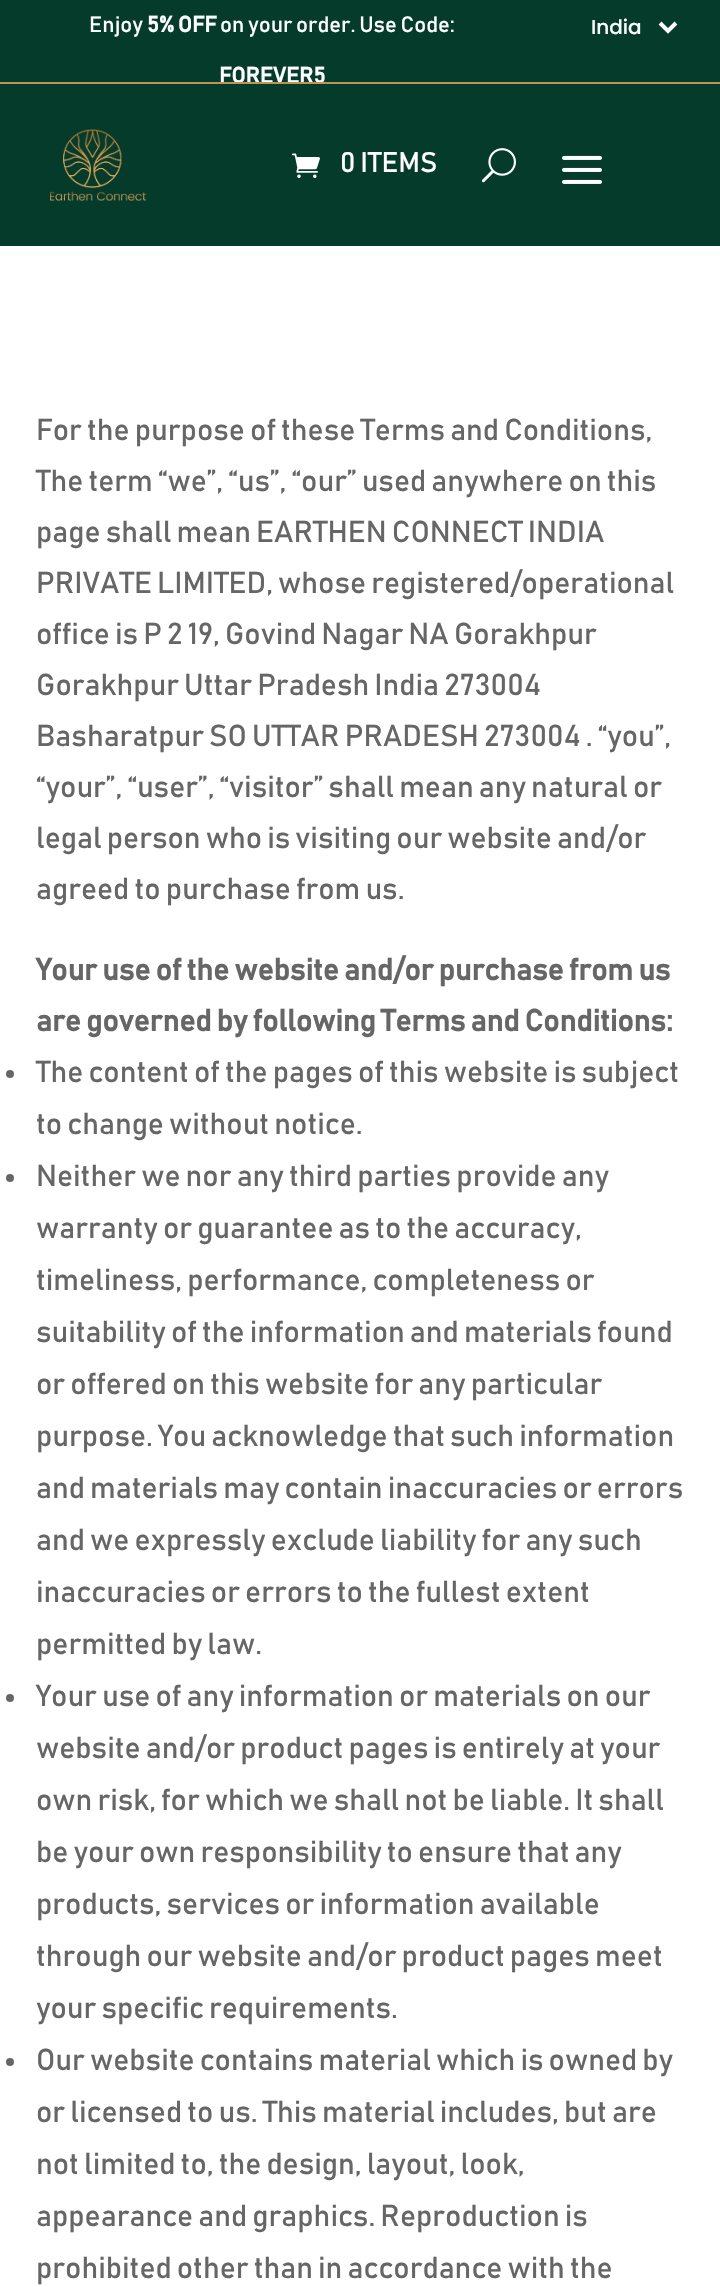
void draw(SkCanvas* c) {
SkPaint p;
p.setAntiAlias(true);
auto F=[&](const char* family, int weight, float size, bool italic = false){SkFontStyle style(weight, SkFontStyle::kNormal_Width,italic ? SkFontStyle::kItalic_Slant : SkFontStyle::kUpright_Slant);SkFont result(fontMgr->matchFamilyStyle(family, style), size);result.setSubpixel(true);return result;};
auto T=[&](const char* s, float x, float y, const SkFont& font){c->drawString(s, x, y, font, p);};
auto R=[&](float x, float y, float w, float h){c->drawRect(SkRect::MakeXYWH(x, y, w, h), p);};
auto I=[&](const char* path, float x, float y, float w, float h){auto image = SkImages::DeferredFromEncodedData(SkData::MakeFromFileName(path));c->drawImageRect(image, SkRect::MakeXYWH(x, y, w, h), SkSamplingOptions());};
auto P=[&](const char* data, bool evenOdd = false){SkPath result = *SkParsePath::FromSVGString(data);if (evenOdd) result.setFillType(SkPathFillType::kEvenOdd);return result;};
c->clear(0xffffffff);
p.setColor(0xff053b2b);
R(0,0,720,82);
p.setColor(0xffc09452);
R(0,82,720,2);
auto f1 = F("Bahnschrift",400,22);
p.setColor(0xffffffff);
T("Enjoy",89,32,f1);
auto f2 = F("Bahnschrift",700,22);
T("5% OFF",147,32,f2);
T("on your order. Use Code:",220,32,f1);
c->save();
c->clipRect(SkRect::MakeXYWH(0,0,720,82));
T("FOREVER5",219,83,f2);
c->restore();
p.setStroke(true);
p.setStrokeWidth(4);
c->drawPath(P("M660 23l8 8l8-8"),p);
auto f3 = F("Poppins",500,20);
p.setStroke(false);
T("India",591,34,f3);
p.setColor(0xff053b2b);
R(0,84,720,162);
I("1.png",50,129,97,72);
I("2.png",292,153,28,25);
auto f4 = F("Bahnschrift",400,28);
p.setColor(0xffffffff);
T("0 ITEMS",340,172,f4);
I("3.png",481,148,35,35);
I("4.png",562,155,40,29);
auto f5 = F("Bahnschrift",400,30);
p.setColor(0xff666666);
T("For the purpose of these Terms and Conditions,",36,440,f5);
T("The term “we”, “us”, “our” used anywhere on this",36,491,f5);
T("page shall mean EARTHEN CONNECT INDIA",36,542,f5);
T("PRIVATE LIMITED, whose registered/operational",36,593,f5);
T("office is P 2 19, Govind Nagar NA Gorakhpur",36,644,f5);
T("Gorakhpur Uttar Pradesh India 273004",36,695,f5);
T("Basharatpur SO UTTAR PRADESH 273004 . “you”,",36,746,f5);
T("“your”, “user”, “visitor” shall mean any natural or",36,797,f5);
T("legal person who is visiting our website and/or",36,848,f5);
T("agreed to purchase from us.",36,899,f5);
auto f6 = F("Bahnschrift",700,30);
T("Your use of the website and/or purchase from us",36,980,f6);
T("are governed by following Terms and Conditions:",36,1031,f6);
c->drawCircle(10,1074,4,p);
T("The content of the pages of this website is subject",36,1082,f5);
T("to change without notice.",36,1134,f5);
c->drawCircle(10,1178,4,p);
T("Neither we nor any third parties provide any",36,1186,f5);
T("warranty or guarantee as to the accuracy,",36,1238,f5);
T("timeliness, performance, completeness or",36,1290,f5);
T("suitability of the information and materials found",36,1342,f5);
T("or offered on this website for any particular",36,1394,f5);
T("purpose. You acknowledge that such information",36,1446,f5);
T("and materials may contain inaccuracies or errors",36,1498,f5);
T("and we expressly exclude liability for any such",36,1550,f5);
T("inaccuracies or errors to the fullest extent",36,1602,f5);
T("permitted by law.",36,1654,f5);
c->drawCircle(10,1698,4,p);
T("Your use of any information or materials on our",36,1706,f5);
T("website and/or product pages is entirely at your",36,1758,f5);
T("own risk, for which we shall not be liable. It shall",36,1810,f5);
T("be your own responsibility to ensure that any",36,1862,f5);
T("products, services or information available",36,1914,f5);
T("through our website and/or product pages meet",36,1966,f5);
T("your specific requirements.",36,2018,f5);
c->drawCircle(10,2062,4,p);
T("Our website contains material which is owned by",36,2070,f5);
T("or licensed to us. This material includes, but are",36,2122,f5);
T("not limited to, the design, layout, look,",36,2174,f5);
T("appearance and graphics. Reproduction is",36,2226,f5);
T("prohibited other than in accordance with the",36,2278,f5);
}
